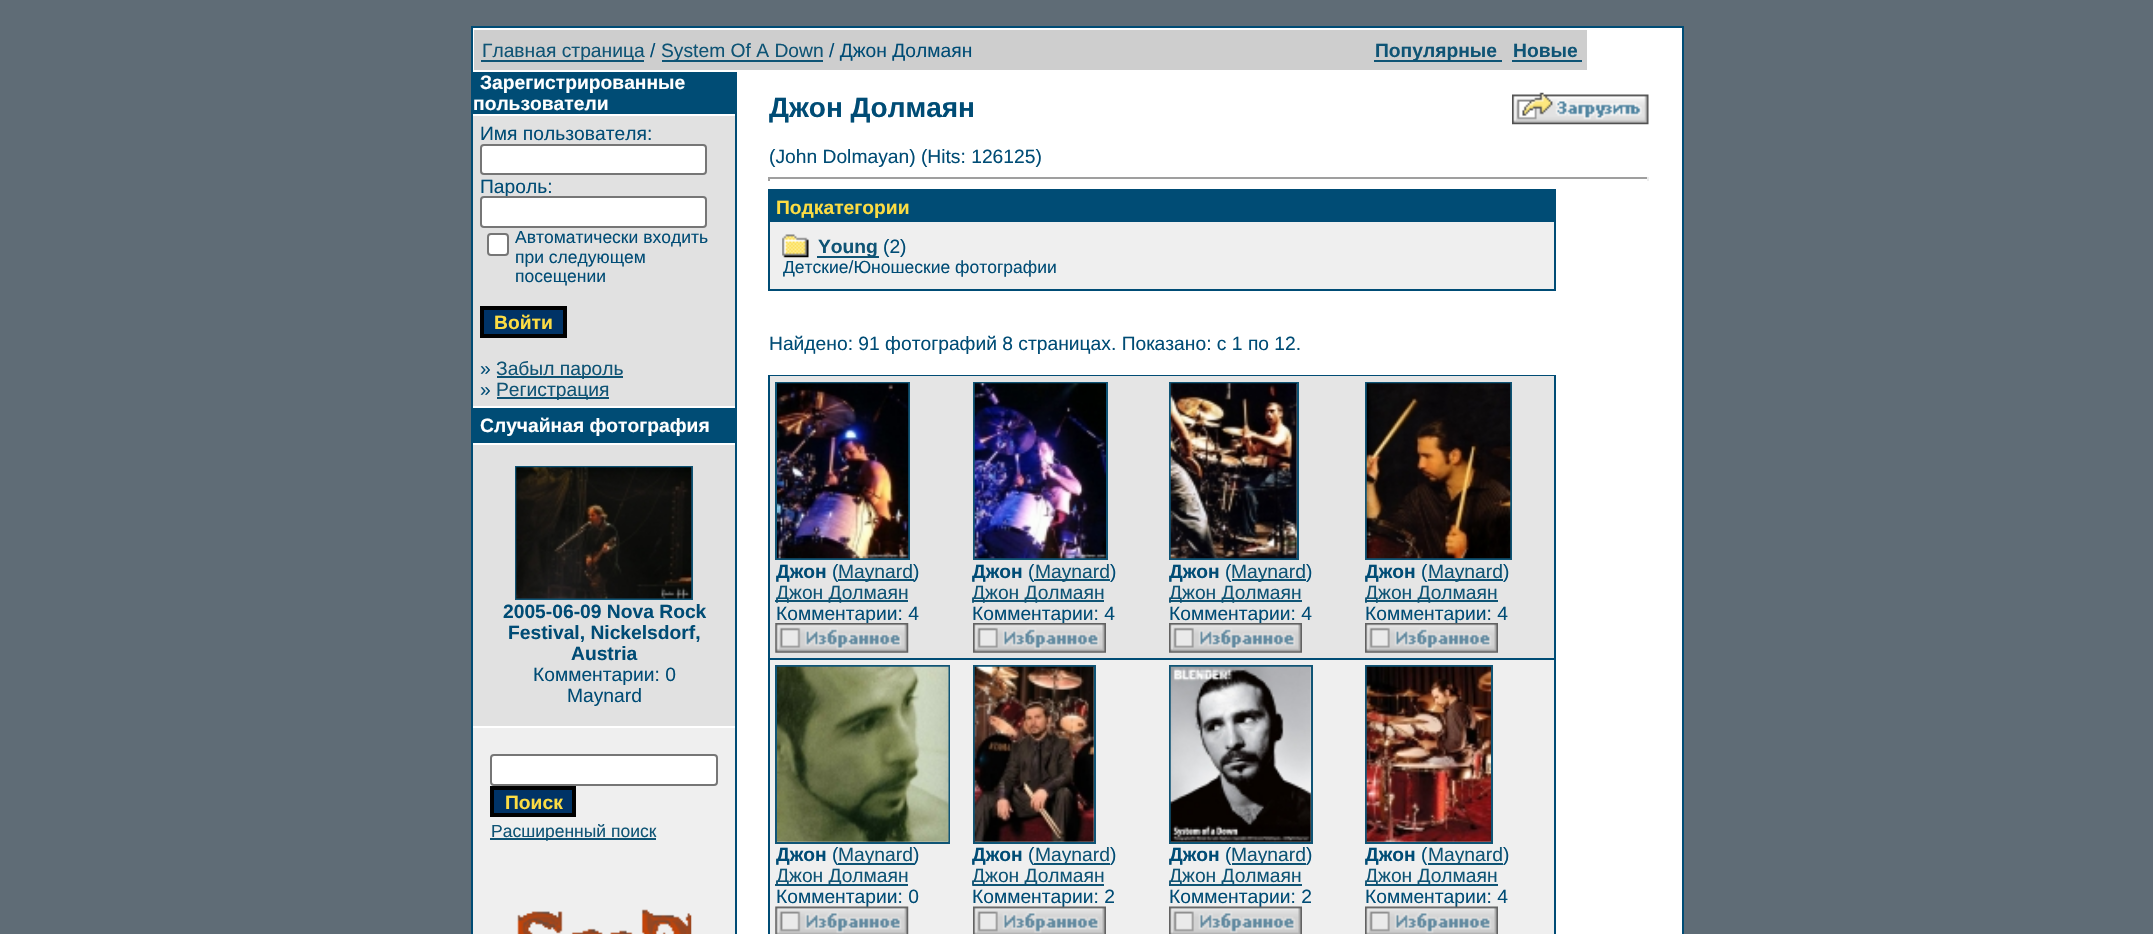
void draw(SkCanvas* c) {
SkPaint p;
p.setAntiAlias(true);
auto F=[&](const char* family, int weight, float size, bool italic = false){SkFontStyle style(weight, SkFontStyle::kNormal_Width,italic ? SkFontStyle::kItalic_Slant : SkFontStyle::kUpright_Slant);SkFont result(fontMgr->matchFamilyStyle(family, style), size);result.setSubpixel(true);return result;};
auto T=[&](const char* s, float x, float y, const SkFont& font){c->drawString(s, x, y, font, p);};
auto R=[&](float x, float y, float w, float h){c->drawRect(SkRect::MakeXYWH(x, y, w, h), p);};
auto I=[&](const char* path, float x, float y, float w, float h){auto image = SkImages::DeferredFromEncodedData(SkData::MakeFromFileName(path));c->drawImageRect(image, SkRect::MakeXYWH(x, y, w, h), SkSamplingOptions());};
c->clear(0xff5f6c76);
p.setColor(0xff004c75);
R(471,26,1213,908);
p.setColor(0xffffffff);
R(473,28,1209,906);
p.setColor(0xffcecece);
R(474,30,1113,40);
p.setColor(0xff0f5475);
R(481,60,163,2);
auto f1 = F("Liberation Sans",400,19.25);
T("Главная страница",482,57,f1);
p.setColor(0xff004c75);
T("/",650,57,f1);
p.setColor(0xff0f5475);
R(662,60,161,2);
T("System Of A Down",661,57,f1);
p.setColor(0xff004c75);
T("/ Джон Долмаян",829,57,f1);
p.setColor(0xff0f5475);
R(1374,60,128,2);
auto f2 = F("Liberation Sans",700,19.25);
T("Популярные",1375,57,f2);
T("Новые",1513,57,f2);
R(1512,60,70,2);
p.setColor(0xffefefef);
R(473,728,262,206);
p.setColor(0xff004c75);
R(473,72,262,42);
p.setColor(0xffffffff);
T("Зарегистрированные",480,89,f2);
T("пользователи",473,110,f2);
p.setColor(0xffe1e1e1);
R(473,116,262,290);
p.setColor(0xff004c75);
T("Имя пользователя:",480,140,f1);
p.setColor(0xffffffff);
c->drawRoundRect(SkRect::MakeXYWH(481,145,225,29),3,3,p);
p.setStroke(true);
p.setStrokeWidth(2);
p.setColor(0xff767676);
c->drawRoundRect(SkRect::MakeXYWH(481,145,225,29),3,3,p);
p.setStroke(false);
p.setColor(0xff004c75);
T("Пароль:",480,193,f1);
p.setColor(0xffffffff);
c->drawRoundRect(SkRect::MakeXYWH(481,197,225,30),3,3,p);
p.setStroke(true);
p.setColor(0xff767676);
c->drawRoundRect(SkRect::MakeXYWH(481,197,225,30),3,3,p);
p.setStroke(false);
p.setColor(0xffffffff);
c->drawRoundRect(SkRect::MakeXYWH(488,234,20,21),3,3,p);
p.setStroke(true);
p.setColor(0xff767676);
c->drawRoundRect(SkRect::MakeXYWH(488,234,20,21),3,3,p);
auto f3 = F("Liberation Sans",400,17.5);
p.setStroke(false);
p.setColor(0xff004c75);
T("Автоматически входить",515,243,f3);
T("при следующем",515,263,f3);
T("посещении",515,282,f3);
p.setColor(0xff003366);
c->drawRect(SkRect::MakeXYWH(482,308,83,28),p);
p.setStroke(true);
p.setStrokeWidth(4);
p.setColor(0xff000000);
c->drawRect(SkRect::MakeXYWH(482,308,83,28),p);
p.setStroke(false);
p.setColor(0xfffcdc43);
T("Войти",494,329,f2);
p.setColor(0xff004c75);
T("»",480,375,f1);
p.setColor(0xff0f5475);
R(497,376,126,2);
T("Забыл пароль",496,375,f1);
p.setColor(0xff004c75);
T("»",480,396,f1);
p.setColor(0xff0f5475);
R(497,397,112,2);
T("Регистрация",496,396,f1);
p.setColor(0xff004c75);
R(473,408,262,35);
p.setColor(0xffffffff);
T("Случайная фотография",480,432,f2);
p.setColor(0xffe1e1e1);
R(473,445,262,281);
p.setStroke(true);
p.setStrokeWidth(2);
p.setColor(0xff0f5475);
c->drawRect(SkRect::MakeXYWH(516,467,176,132),p);
I("1.png",516,467,176,132);
p.setStroke(false);
p.setColor(0xff004c75);
T("2005-06-09 Nova Rock",503,618,f2);
T("Festival, Nickelsdorf,",508,639,f2);
T("Austria",571,660,f2);
T("Комментарии: 0",533,681,f1);
T("Maynard",567,702,f1);
p.setColor(0xffffffff);
c->drawRoundRect(SkRect::MakeXYWH(491,755,226,30),3,3,p);
p.setStroke(true);
p.setColor(0xff767676);
c->drawRoundRect(SkRect::MakeXYWH(491,755,226,30),3,3,p);
p.setStroke(false);
p.setColor(0xff003366);
c->drawRect(SkRect::MakeXYWH(492,788,82,27),p);
p.setStroke(true);
p.setStrokeWidth(4);
p.setColor(0xff000000);
c->drawRect(SkRect::MakeXYWH(492,788,82,27),p);
p.setStroke(false);
p.setColor(0xfffcdc43);
T("Поиск",505,809,f2);
p.setColor(0xff0f5475);
R(490,838,166,2);
T("Расширенный поиск",491,837,f3);
I("2.png",517,909,175,25);
p.setColor(0xff004c75);
R(735,72,2,862);
auto f4 = F("Liberation Sans",700,28);
T("Джон Долмаян",769,117,f4);
I("3.png",1512,92,137,33);
T("(John Dolmayan) (Hits: 126125)",769,163,f1);
p.setColor(0xff9f9f9f);
R(768,177,881,2);
p.setColor(0xffeeeeee);
R(1647,177,2,4);
p.setColor(0xff9f9f9f);
R(768,177,2,4);
p.setColor(0xff004c75);
R(768,189,788,102);
p.setColor(0xfffcdc43);
T("Подкатегории",776,214,f2);
p.setColor(0xffefefef);
R(770,222,784,67);
I("4.png",782,234,27,24);
p.setColor(0xff0f5475);
R(817,256,62,2);
T("Young",818,253,f2);
p.setColor(0xff004c75);
T("(2)",883,253,f1);
T("Детские/Юношеские фотографии",783,273,f3);
T("Найдено: 91 фотографий 8 страницах. Показано: с 1 по 12.",769,350,f1);
R(768,375,788,559);
p.setColor(0xffe5e5e5);
R(770,376,784,282);
p.setStroke(true);
p.setStrokeWidth(2);
p.setColor(0xff0f5475);
c->drawRect(SkRect::MakeXYWH(776,383,133,176),p);
I("5.png",777,383,132,176);
p.setStroke(false);
p.setColor(0xff004c75);
T("Джон",776,578,f2);
T("(",832,578,f1);
p.setColor(0xff0f5475);
R(838,579,76,2);
T("Maynard",838,578,f1);
p.setColor(0xff004c75);
T(")",913,578,f1);
p.setColor(0xff0f5475);
R(775,600,133,2);
T("Джон Долмаян",776,599,f1);
p.setColor(0xff004c75);
T("Комментарии: 4",776,620,f1);
I("6.png",775,623,134,30);
p.setStroke(true);
p.setColor(0xff0f5475);
c->drawRect(SkRect::MakeXYWH(974,383,133,176),p);
I("7.png",974,383,132,176);
p.setStroke(false);
p.setColor(0xff004c75);
T("Джон",972,578,f2);
T("(",1028,578,f1);
p.setColor(0xff0f5475);
R(1034,579,76,2);
T("Maynard",1035,578,f1);
p.setColor(0xff004c75);
T(")",1110,578,f1);
p.setColor(0xff0f5475);
R(973,600,131,2);
T("Джон Долмаян",972,599,f1);
p.setColor(0xff004c75);
T("Комментарии: 4",972,620,f1);
I("8.png",973,623,133,30);
p.setStroke(true);
p.setColor(0xff0f5475);
c->drawRect(SkRect::MakeXYWH(1170,383,128,176),p);
I("9.png",1170,383,127,176);
p.setStroke(false);
p.setColor(0xff004c75);
T("Джон",1169,578,f2);
T("(",1225,578,f1);
p.setColor(0xff0f5475);
R(1232,579,74,2);
T("Maynard",1231,578,f1);
p.setColor(0xff004c75);
T(")",1306,578,f1);
p.setColor(0xff0f5475);
R(1169,600,133,2);
T("Джон Долмаян",1169,599,f1);
p.setColor(0xff004c75);
T("Комментарии: 4",1169,620,f1);
I("8.png",1169,623,133,30);
p.setStroke(true);
p.setColor(0xff0f5475);
c->drawRect(SkRect::MakeXYWH(1366,383,145,176),p);
I("10.png",1366,383,145,176);
p.setStroke(false);
p.setColor(0xff004c75);
T("Джон",1365,578,f2);
T("(",1421,578,f1);
p.setColor(0xff0f5475);
R(1428,579,75,2);
T("Maynard",1428,578,f1);
p.setColor(0xff004c75);
T(")",1503,578,f1);
p.setColor(0xff0f5475);
R(1365,600,133,2);
T("Джон Долмаян",1365,599,f1);
p.setColor(0xff004c75);
T("Комментарии: 4",1365,620,f1);
I("8.png",1365,623,133,30);
p.setColor(0xffefefef);
R(770,660,784,274);
p.setStroke(true);
p.setColor(0xff0f5475);
c->drawRect(SkRect::MakeXYWH(776,666,173,177),p);
I("11.png",777,666,172,176);
p.setStroke(false);
p.setColor(0xff004c75);
T("Джон",776,861,f2);
T("(",832,861,f1);
p.setColor(0xff0f5475);
R(838,863,76,2);
T("Maynard",838,861,f1);
p.setColor(0xff004c75);
T(")",913,861,f1);
p.setColor(0xff0f5475);
R(775,884,133,2);
T("Джон Долмаян",776,882,f1);
p.setColor(0xff004c75);
T("Комментарии: 0",776,903,f1);
I("12.png",775,906,134,28);
p.setStroke(true);
p.setColor(0xff0f5475);
c->drawRect(SkRect::MakeXYWH(974,666,121,177),p);
I("13.png",974,666,120,176);
p.setStroke(false);
p.setColor(0xff004c75);
T("Джон",972,861,f2);
T("(",1028,861,f1);
p.setColor(0xff0f5475);
R(1034,863,76,2);
T("Maynard",1035,861,f1);
p.setColor(0xff004c75);
T(")",1110,861,f1);
p.setColor(0xff0f5475);
R(973,884,131,2);
T("Джон Долмаян",972,882,f1);
p.setColor(0xff004c75);
T("Комментарии: 2",972,903,f1);
I("14.png",973,906,133,28);
p.setStroke(true);
p.setColor(0xff0f5475);
c->drawRect(SkRect::MakeXYWH(1170,666,142,177),p);
I("15.png",1170,666,141,176);
p.setStroke(false);
p.setColor(0xff004c75);
T("Джон",1169,861,f2);
T("(",1225,861,f1);
p.setColor(0xff0f5475);
R(1232,863,74,2);
T("Maynard",1231,861,f1);
p.setColor(0xff004c75);
T(")",1306,861,f1);
p.setColor(0xff0f5475);
R(1169,884,133,2);
T("Джон Долмаян",1169,882,f1);
p.setColor(0xff004c75);
T("Комментарии: 2",1169,903,f1);
I("16.png",1169,906,133,28);
p.setStroke(true);
p.setColor(0xff0f5475);
c->drawRect(SkRect::MakeXYWH(1366,666,126,177),p);
I("17.png",1366,666,125,176);
p.setStroke(false);
p.setColor(0xff004c75);
T("Джон",1365,861,f2);
T("(",1421,861,f1);
p.setColor(0xff0f5475);
R(1428,863,75,2);
T("Maynard",1428,861,f1);
p.setColor(0xff004c75);
T(")",1503,861,f1);
p.setColor(0xff0f5475);
R(1365,884,133,2);
T("Джон Долмаян",1365,882,f1);
p.setColor(0xff004c75);
T("Комментарии: 4",1365,903,f1);
I("18.png",1365,906,133,28);
}
